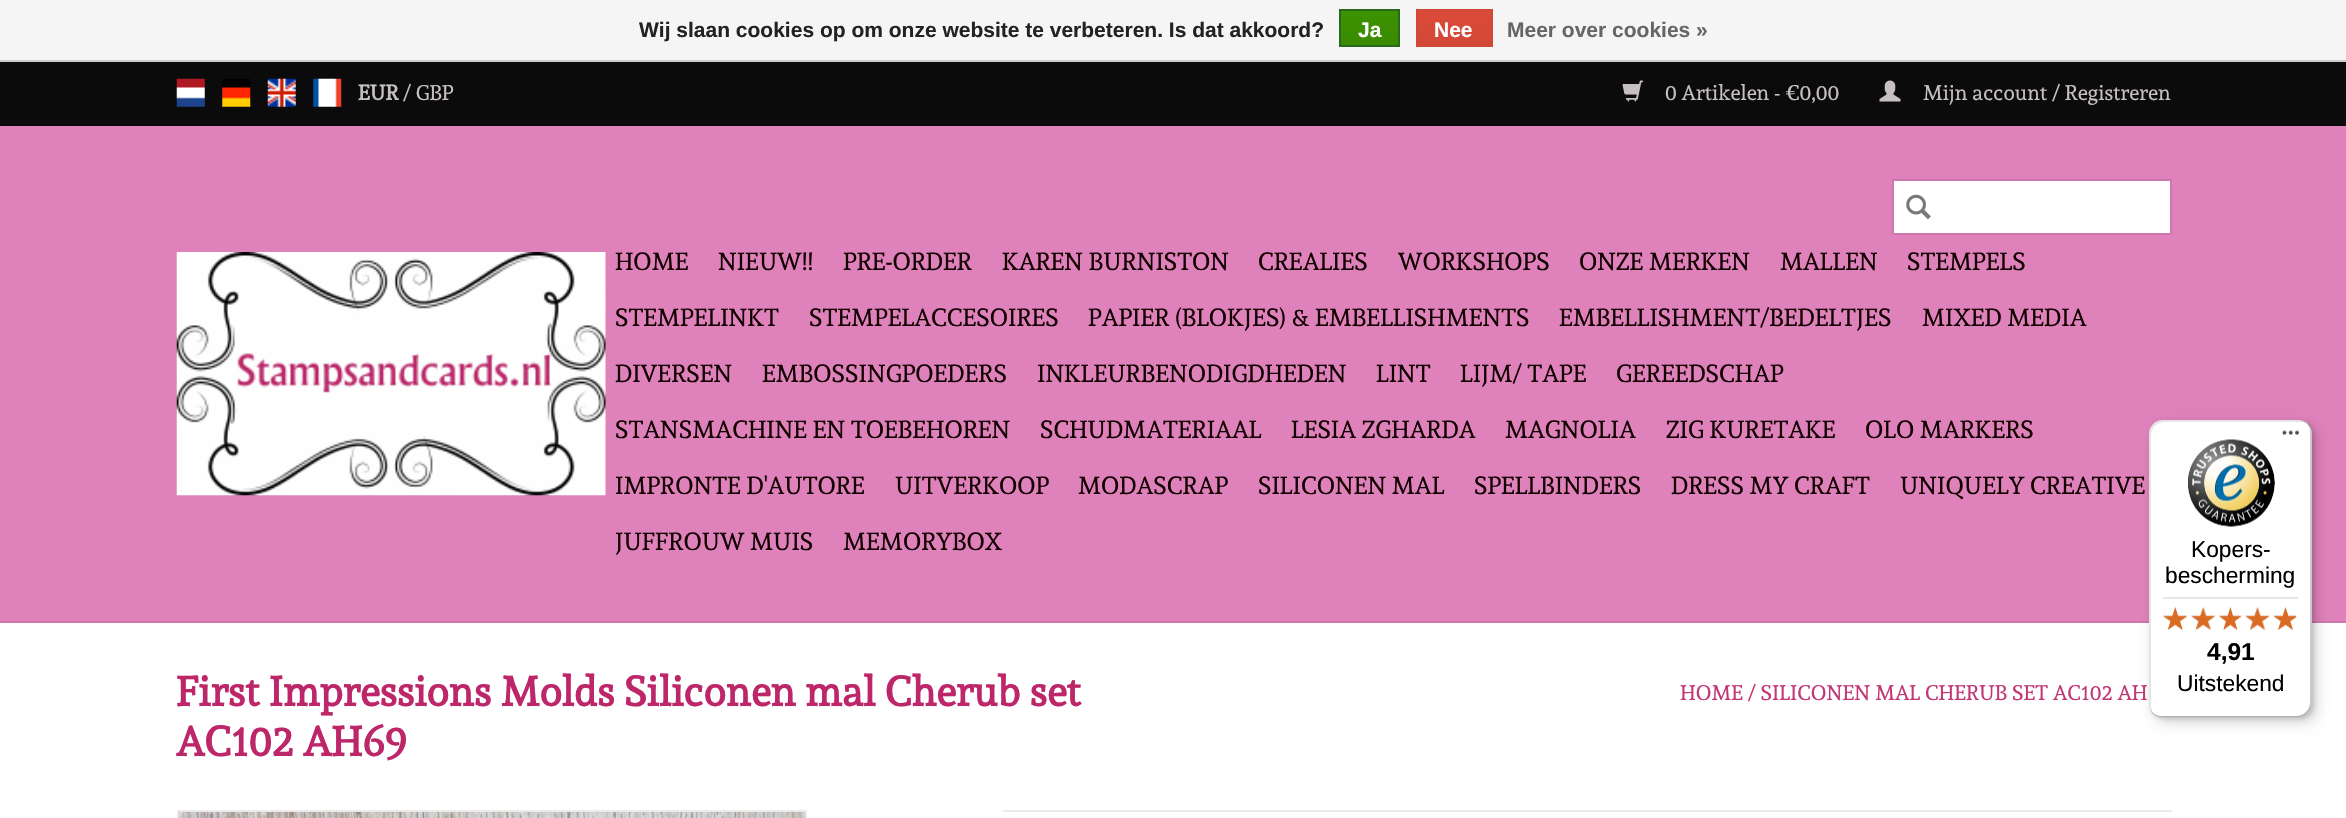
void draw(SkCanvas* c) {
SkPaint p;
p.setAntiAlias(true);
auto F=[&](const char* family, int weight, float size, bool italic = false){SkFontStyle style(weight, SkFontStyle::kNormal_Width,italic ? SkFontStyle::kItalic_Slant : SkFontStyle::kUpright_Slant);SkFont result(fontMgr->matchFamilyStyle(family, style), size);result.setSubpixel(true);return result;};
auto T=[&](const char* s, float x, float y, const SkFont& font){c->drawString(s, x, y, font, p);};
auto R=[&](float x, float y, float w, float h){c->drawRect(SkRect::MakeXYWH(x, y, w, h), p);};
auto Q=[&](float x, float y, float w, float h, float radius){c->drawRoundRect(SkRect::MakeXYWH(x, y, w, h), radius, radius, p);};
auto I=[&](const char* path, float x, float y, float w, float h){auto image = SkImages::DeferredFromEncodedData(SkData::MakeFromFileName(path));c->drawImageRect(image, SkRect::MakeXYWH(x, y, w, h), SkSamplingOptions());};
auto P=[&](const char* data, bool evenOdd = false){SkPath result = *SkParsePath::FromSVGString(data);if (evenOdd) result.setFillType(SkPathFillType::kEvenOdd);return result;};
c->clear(0xffffffff);
p.setColor(0xfff5f5f5);
R(0,0,2346,60);
p.setColor(0xffcccccc);
R(0,60,2346,2);
auto f1 = F("Liberation Sans",700,21);
p.setColor(0xff222222);
T("Wij slaan cookies op om onze website te verbeteren. Is dat akkoord?",639,37,f1);
{
const SkColor colors[] = {0xff3c9300,0xff398a00};
const float stops[] = {0,1};
const SkPoint ends[] = {{1369,10}, {1369,46}};
p.setShader(SkGradientShader::MakeLinear(ends, colors, stops, 2, SkTileMode::kClamp));
p.setAlpha(255);
}
R(1341,11,57,34);
p.setStroke(true);
p.setStrokeWidth(2);
p.setShader(nullptr);
p.setColor(0xff29691d);
c->drawRect(SkRect::MakeXYWH(1340,10,59,36),p);
p.setStroke(false);
p.setColor(0xffffffff);
T("Ja",1358,37,f1);
{
const SkColor colors[] = {0xffdc4a38,0xffd14836};
const float stops[] = {0,1};
const SkPoint ends[] = {{1454,10}, {1454,46}};
p.setShader(SkGradientShader::MakeLinear(ends, colors, stops, 2, SkTileMode::kClamp));
p.setAlpha(255);
}
R(1418,11,73,34);
p.setStroke(true);
p.setShader(nullptr);
p.setColor(0xffd14836);
c->drawRect(SkRect::MakeXYWH(1417,10,75,36),p);
p.setStroke(false);
p.setColor(0xffffffff);
T("Nee",1434,37,f1);
p.setColor(0xff666666);
T("Meer over cookies »",1507,37,f1);
p.setColor(0xffdf82bb);
R(0,126,2346,495);
p.setColor(0xffcd77ac);
R(0,621,2346,2);
p.setColor(0xff0b0b0b);
R(0,62,2346,64);
I("1.png",176,78,29,29);
I("2.png",222,79,29,28);
I("3.png",267,78,29,29);
I("4.png",313,78,29,29);
auto f2 = F("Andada",700,21);
p.setColor(0xffc7c0c0);
T("EUR",358,100,f2);
auto f3 = F("Andada",400,21);
T("/ GBP",403,100,f3);
I("5.png",1622,80,22,22);
T("0 Artikelen - €0,00",1665,100,f3);
I("6.png",1879,80,22,22);
T("Mijn account / Registreren",1923,100,f3);
I("7.png",176,252,430,244);
p.setColor(0xffffffff);
c->drawRect(SkRect::MakeXYWH(1893,180,278,54),p);
p.setStroke(true);
p.setColor(0xffcd77ac);
c->drawRect(SkRect::MakeXYWH(1893,180,278,54),p);
I("8.png",1906,194,25,26);
auto f4 = F("Andada",400,24.5);
p.setStroke(false);
p.setColor(0xff130101);
T("HOME",615,270,f4);
T("NIEUW!!",718,270,f4);
T("PRE-ORDER",843,270,f4);
T("KAREN BURNISTON",1002,270,f4);
T("CREALIES",1258,270,f4);
T("WORKSHOPS",1398,270,f4);
T("ONZE MERKEN",1579,270,f4);
T("MALLEN",1780,270,f4);
T("STEMPELS",1907,270,f4);
T("STEMPELINKT",615,326,f4);
T("STEMPELACCESOIRES",809,326,f4);
T("PAPIER (BLOKJES) & EMBELLISHMENTS",1088,326,f4);
T("EMBELLISHMENT/BEDELTJES",1559,326,f4);
T("MIXED MEDIA",1922,326,f4);
T("DIVERSEN",615,382,f4);
T("EMBOSSINGPOEDERS",762,382,f4);
T("INKLEURBENODIGDHEDEN",1037,382,f4);
T("LINT",1376,382,f4);
T("LIJM/ TAPE",1460,382,f4);
T("GEREEDSCHAP",1616,382,f4);
T("STANSMACHINE EN TOEBEHOREN",615,438,f4);
T("SCHUDMATERIAAL",1040,438,f4);
T("LESIA ZGHARDA",1291,438,f4);
T("MAGNOLIA",1505,438,f4);
T("ZIG KURETAKE",1666,438,f4);
T("OLO MARKERS",1865,438,f4);
T("IMPRONTE D'AUTORE",615,494,f4);
T("UITVERKOOP",895,494,f4);
T("MODASCRAP",1078,494,f4);
T("SILICONEN MAL",1258,494,f4);
T("SPELLBINDERS",1474,494,f4);
T("DRESS MY CRAFT",1671,494,f4);
T("UNIQUELY CREATIVE",1900,494,f4);
T("JUFFROUW MUIS",615,550,f4);
T("MEMORYBOX",843,550,f4);
p.setColor(0x26000000);
p.setMaskFilter(SkMaskFilter::MakeBlur(kNormal_SkBlurStyle, 7));
c->drawRoundRect(SkRect::MakeXYWH(2154,425,163,298),14,14,p);
p.setMaskFilter(nullptr);
p.setMaskFilter(SkMaskFilter::MakeBlur(kNormal_SkBlurStyle, 2));
c->drawRoundRect(SkRect::MakeXYWH(2151,422,163,297),14,14,p);
p.setMaskFilter(nullptr);
p.setColor(0xffffffff);
Q(2149,420,163,298,14);
p.setColor(0x1a000000);
c->drawPath(P("M2165 422h135c3 0 7 1 9 4c-2-4-6-6-11-6h-135c-8 0-14 6-14 14v270c0 6 3 10 8 13c-4-3-6-7-6-12v-269c0-8 6-14 14-14z"),p);
p.setColor(0x33000000);
c->drawPath(P("M2151 711c2 4 7 7 12 7h135c8 0 14-6 14-14v-270c0-5-2-9-6-11c3 2 4 6 4 9v270c0 7-6 14-14 14h-135c-4 0-7-2-10-5z"),p);
p.setColor(0x33323232);
c->drawPath(P("M2150 710c3 5 7 8 13 8h135c8 0 14-6 14-14v-270c0-5-2-9-6-11c3 2 5 6 5 10v269c0 8-7 14-14 14h-135c-5 0-9-2-12-6z"),p);
p.setColor(0x4dffffff);
c->drawPath(P("M2152 712c2 4 6 6 11 6h135c8 0 14-6 14-14v-270c0-4-1-7-4-9c2 2 3 5 3 8v270c0 7-6 14-14 14h-135c-4 0-8-2-10-5z"),p);
I("9.png",2282,430,17,5);
I("10.png",2188,439,87,88);
auto f5 = F("Liberation Sans",400,22.75);
p.setColor(0xff000000);
T("Kopers-",2191,557,f5);
T("bescherming",2165,583,f5);
p.setColor(0xffe5e5e5);
R(2163,597,135,2);
I("11.png",2163,607,24,23);
I("12.png",2191,607,24,23);
I("13.png",2219,607,22,23);
I("14.png",2245,607,25,23);
I("15.png",2274,607,23,23);
I("16.png",2163,607,24,23);
I("17.png",2191,607,25,23);
I("18.png",2219,607,23,23);
I("19.png",2245,607,25,23);
I("20.png",2273,607,23,23);
auto f6 = F("Liberation Sans",700,24.5);
p.setColor(0xff000000);
T("4,91",2207,660,f6);
T("Uitstekend",2177,691,f5);
auto f7 = F("Andada",700,41.3);
p.setColor(0xffbd2769);
T("First Impressions Molds Siliconen mal Cherub set",176,706,f7);
T("AC102 AH69",176,756,f7);
p.setColor(0xffc23875);
T("HOME / SILICONEN MAL CHERUB SET AC102 AH",1680,700,f3);
p.setStroke(true);
p.setColor(0xffeaeaea);
c->drawRect(SkRect::MakeXYWH(178,811,628,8),p);
I("21.png",178,812,627,6);
p.setStroke(false);
R(1003,810,1169,2);
}
